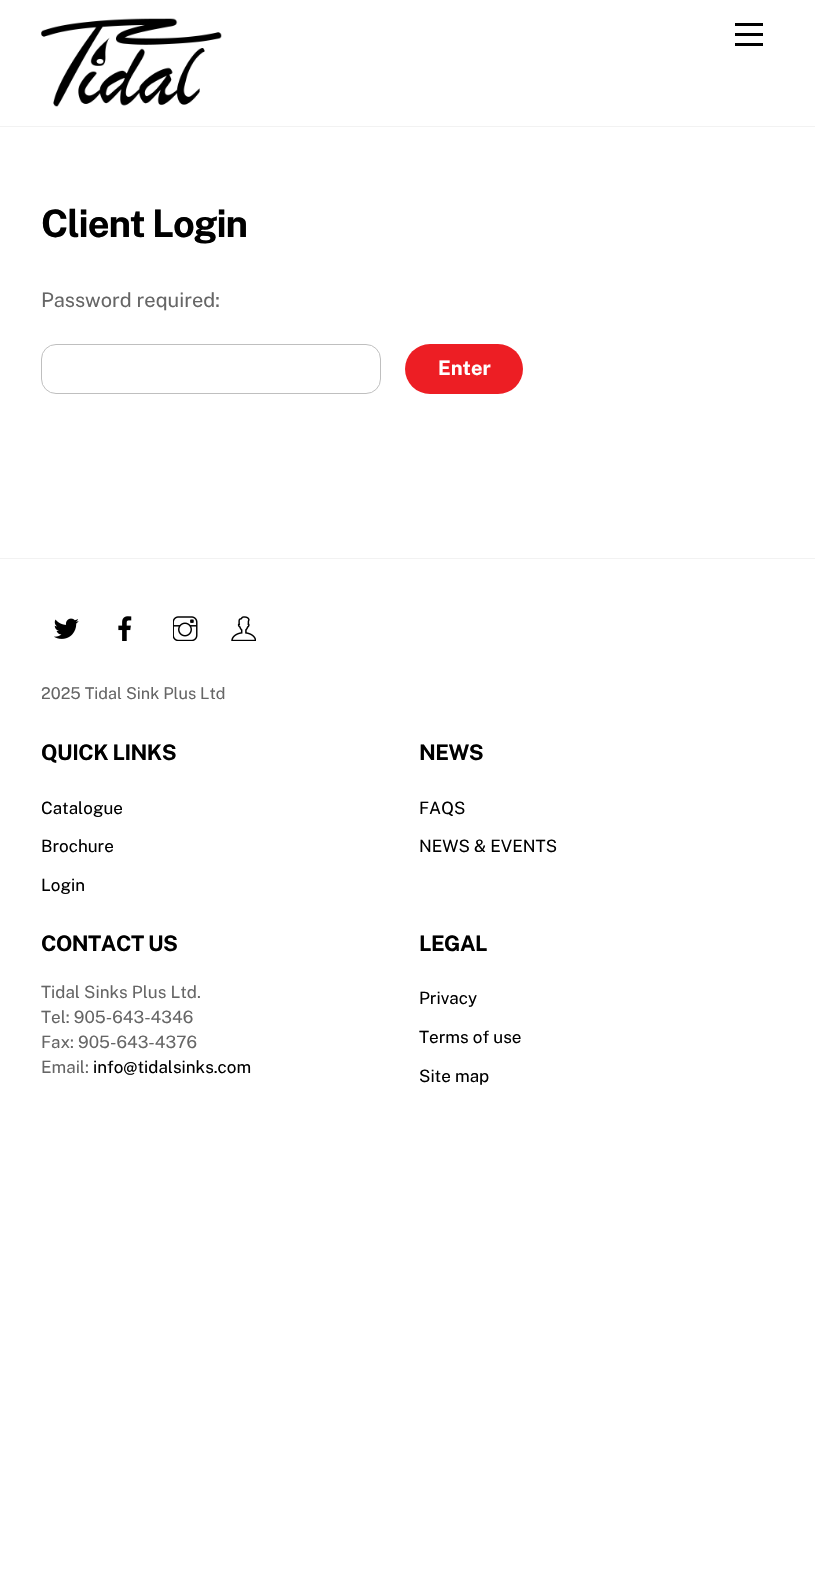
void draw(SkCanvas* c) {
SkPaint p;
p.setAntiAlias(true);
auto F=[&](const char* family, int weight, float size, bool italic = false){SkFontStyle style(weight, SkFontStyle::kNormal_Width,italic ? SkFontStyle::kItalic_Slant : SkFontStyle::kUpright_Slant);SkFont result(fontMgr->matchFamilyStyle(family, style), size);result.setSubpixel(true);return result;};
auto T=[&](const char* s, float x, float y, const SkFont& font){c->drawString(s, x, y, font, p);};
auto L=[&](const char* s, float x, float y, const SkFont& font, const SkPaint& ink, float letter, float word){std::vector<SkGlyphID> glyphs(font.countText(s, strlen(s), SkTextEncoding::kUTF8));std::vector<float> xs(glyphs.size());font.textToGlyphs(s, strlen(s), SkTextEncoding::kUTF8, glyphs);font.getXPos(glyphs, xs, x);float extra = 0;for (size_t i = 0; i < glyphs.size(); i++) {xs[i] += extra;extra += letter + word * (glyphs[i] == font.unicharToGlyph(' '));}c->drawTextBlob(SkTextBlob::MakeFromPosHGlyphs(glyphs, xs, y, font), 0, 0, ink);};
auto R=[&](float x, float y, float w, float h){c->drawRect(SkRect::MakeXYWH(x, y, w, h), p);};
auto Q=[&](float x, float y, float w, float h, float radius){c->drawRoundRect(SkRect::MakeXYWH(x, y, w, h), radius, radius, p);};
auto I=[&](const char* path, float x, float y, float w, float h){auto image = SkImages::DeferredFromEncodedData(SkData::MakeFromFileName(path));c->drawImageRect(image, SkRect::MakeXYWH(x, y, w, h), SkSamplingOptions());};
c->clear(0xffffffff);
p.setColor(0xfff2f2f2);
R(0,126,815,1);
I("1.png",41,18,181,89);
p.setColor(0xff000000);
R(735,43,28,3);
R(735,23,28,3);
R(735,33,28,3);
auto f1 = F("Public Sans",700,38);
L("Client Login",41,237,f1,p,-1.1,0);
auto f2 = F("Public Sans",400,20);
p.setColor(0xff666666);
T("Password required:",41,307,f2);
p.setStroke(true);
p.setStrokeWidth(1);
p.setColor(0xffbfbfbf);
c->drawRoundRect(SkRect::MakeXYWH(41.5,344.5,339,49),14.5,14.5,p);
p.setStroke(false);
p.setColor(0xffed1e24);
Q(405,344,118,50,25);
auto f3 = F("Public Sans",700,20);
p.setColor(0xffffffff);
T("Enter",438,375,f3);
p.setColor(0xfff2f2f2);
R(0,558,815,1);
I("2.png",54,618,25,21);
I("3.png",118,616,14,25);
I("4.png",173,616,25,25);
I("5.png",231,616,25,25);
auto f4 = F("Public Sans",400,16.25);
p.setColor(0xff666666);
T("2025 Tidal Sink Plus Ltd",41,699,f4);
auto f5 = F("Public Sans",700,21.5);
p.setColor(0xff000000);
L("QUICK LINKS",41,760,f5,p,-.5,0);
auto f6 = F("Public Sans",400,17);
T("Catalogue",41,814,f6);
T("Brochure",41,852,f6);
T("Login",41,891,f6);
L("NEWS",419,760,f5,p,-.5,0);
T("FAQS",419,814,f6);
T("NEWS & EVENTS",419,852,f6);
L("CONTACT US",41,951,f5,p,-.5,0);
p.setColor(0xff666666);
T("Tidal Sinks Plus Ltd.",41,998,f6);
T("Tel: 905-643-4346",41,1023,f6);
T("Fax: 905-643-4376",41,1048,f6);
T("Email:",41,1073,f6);
p.setColor(0xff000000);
T("info@tidalsinks.com",93,1073,f6);
L("LEGAL",419,951,f5,p,-.5,0);
T("Privacy",419,1004,f6);
T("Terms of use",419,1043,f6);
T("Site map",419,1082,f6);
}
